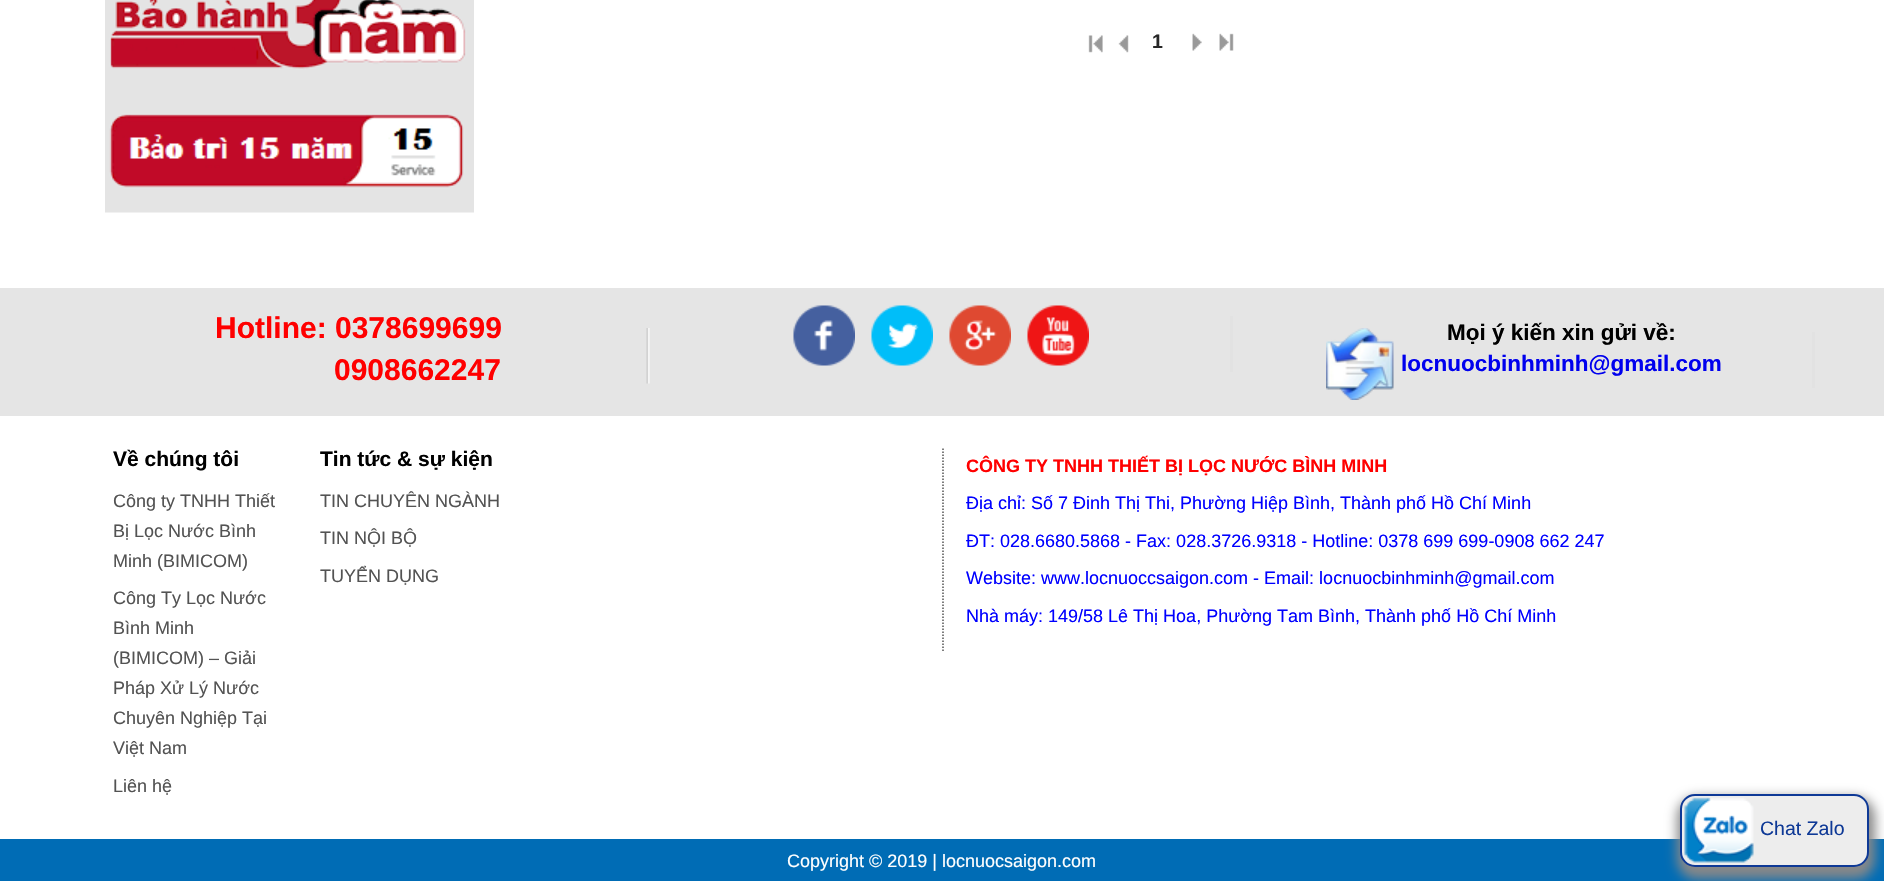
void draw(SkCanvas* c) {
SkPaint p;
p.setAntiAlias(true);
auto F=[&](const char* family, int weight, float size, bool italic = false){SkFontStyle style(weight, SkFontStyle::kNormal_Width,italic ? SkFontStyle::kItalic_Slant : SkFontStyle::kUpright_Slant);SkFont result(fontMgr->matchFamilyStyle(family, style), size);result.setSubpixel(true);return result;};
auto T=[&](const char* s, float x, float y, const SkFont& font){c->drawString(s, x, y, font, p);};
auto R=[&](float x, float y, float w, float h){c->drawRect(SkRect::MakeXYWH(x, y, w, h), p);};
auto I=[&](const char* path, float x, float y, float w, float h){auto image = SkImages::DeferredFromEncodedData(SkData::MakeFromFileName(path));c->drawImageRect(image, SkRect::MakeXYWH(x, y, w, h), SkSamplingOptions());};
auto P=[&](const char* data, bool evenOdd = false){SkPath result = *SkParsePath::FromSVGString(data);if (evenOdd) result.setFillType(SkPathFillType::kEvenOdd);return result;};
c->clear(0xffffffff);
I("1.png",105,0,369,213);
I("2.png",1088,35,15,18);
I("3.png",1118,35,11,18);
auto f1 = F("Liberation Sans",700,19.5);
p.setColor(0xff272727);
T("1",1152,48,f1);
I("4.png",1192,33,10,18);
I("5.png",1219,33,15,18);
p.setColor(0xffe5e5e5);
R(0,288,1884,128);
I("6.png",646,328,4,56);
auto f2 = F("Liberation Sans",700,30);
p.setColor(0xffff0000);
T("Hotline: 0378699699",215,338,f2);
T("0908662247",334,380,f2);
p.setColor(0xffe2e2e2);
R(1230,316,3,56);
I("7.png",793,305,62,61);
I("8.png",871,305,62,61);
I("9.png",949,305,62,61);
I("10.png",1027,305,62,61);
R(1812,332,3,56);
I("11.png",1326,328,68,72);
auto f3 = F("Liberation Sans",700,22.5);
p.setColor(0xff000000);
T("Mọi ý kiến xin gửi về:",1447,340,f3);
p.setColor(0xff0000ee);
T("locnuocbinhminh@gmail.com",1401,371,f3);
auto f4 = F("Liberation Sans",700,21);
p.setColor(0xff000000);
T("Về chúng tôi",113,466,f4);
auto f5 = F("Liberation Sans",400,18);
p.setColor(0xff535353);
T("Công ty TNHH Thiết",113,507,f5);
T("Bị Lọc Nước Bình",113,537,f5);
T("Minh (BIMICOM)",113,567,f5);
T("Công Ty Lọc Nước",113,604,f5);
T("Bình Minh",113,634,f5);
T("(BIMICOM) – Giải",113,664,f5);
T("Pháp Xử Lý Nước",113,694,f5);
T("Chuyên Nghiệp Tại",113,724,f5);
T("Việt Nam",113,754,f5);
T("Liên hệ",113,792,f5);
p.setColor(0xff000000);
T("Tin tức & sự kiện",320,466,f4);
p.setColor(0xff535353);
T("TIN CHUYÊN NGÀNH",320,507,f5);
T("TIN NỘI BỘ",320,544,f5);
T("TUYỂN DỤNG",320,582,f5);
p.setStroke(true);
p.setStrokeWidth(1.5);
p.setPathEffect(SkDashPathEffect::Make({{1.5f,1.5f}}, 0));
c->drawPath(P("M943 448.5v202.5"),p);
p.setPathEffect(nullptr);
auto f6 = F("Liberation Sans",700,18);
p.setStroke(false);
p.setColor(0xffff0000);
T("CÔNG TY TNHH THIẾT BỊ LỌC NƯỚC BÌNH MINH",966,472,f6);
p.setColor(0xff0000ff);
T("Địa chỉ: Số 7 Đinh Thị Thi, Phường Hiệp Bình, Thành phố Hồ Chí Minh",966,509,f5);
T("ĐT: 028.6680.5868 - Fax: 028.3726.9318 - Hotline: 0378 699 699-0908 662 247",966,547,f5);
T("Website: www.locnuoccsaigon.com - Email: locnuocbinhminh@gmail.com",966,584,f5);
T("Nhà máy: 149/58 Lê Thị Hoa, Phường Tam Bình, Thành phố Hồ Chí Minh",966,622,f5);
p.setColor(0xff006cb5);
R(0,839,1884,42);
p.setColor(0xff888888);
p.setMaskFilter(SkMaskFilter::MakeBlur(kNormal_SkBlurStyle, 6));
c->drawRoundRect(SkRect::MakeXYWH(1677,797,198,82),20,20,p);
p.setMaskFilter(nullptr);
p.setColor(0xffededed);
c->drawRoundRect(SkRect::MakeXYWH(1681,795,187,71),14,14,p);
p.setStroke(true);
p.setStrokeWidth(2);
p.setColor(0xff0e3996);
c->drawRoundRect(SkRect::MakeXYWH(1681,795,187,71),14,14,p);
I("12.png",1684,797,70,66);
auto f7 = F("Liberation Sans",400,19.5);
p.setStroke(false);
T("Chat Zalo",1760,835,f7);
p.setColor(0xffffffff);
T("Copyright © 2019 | locnuocsaigon.com",787,867,f5);
}
